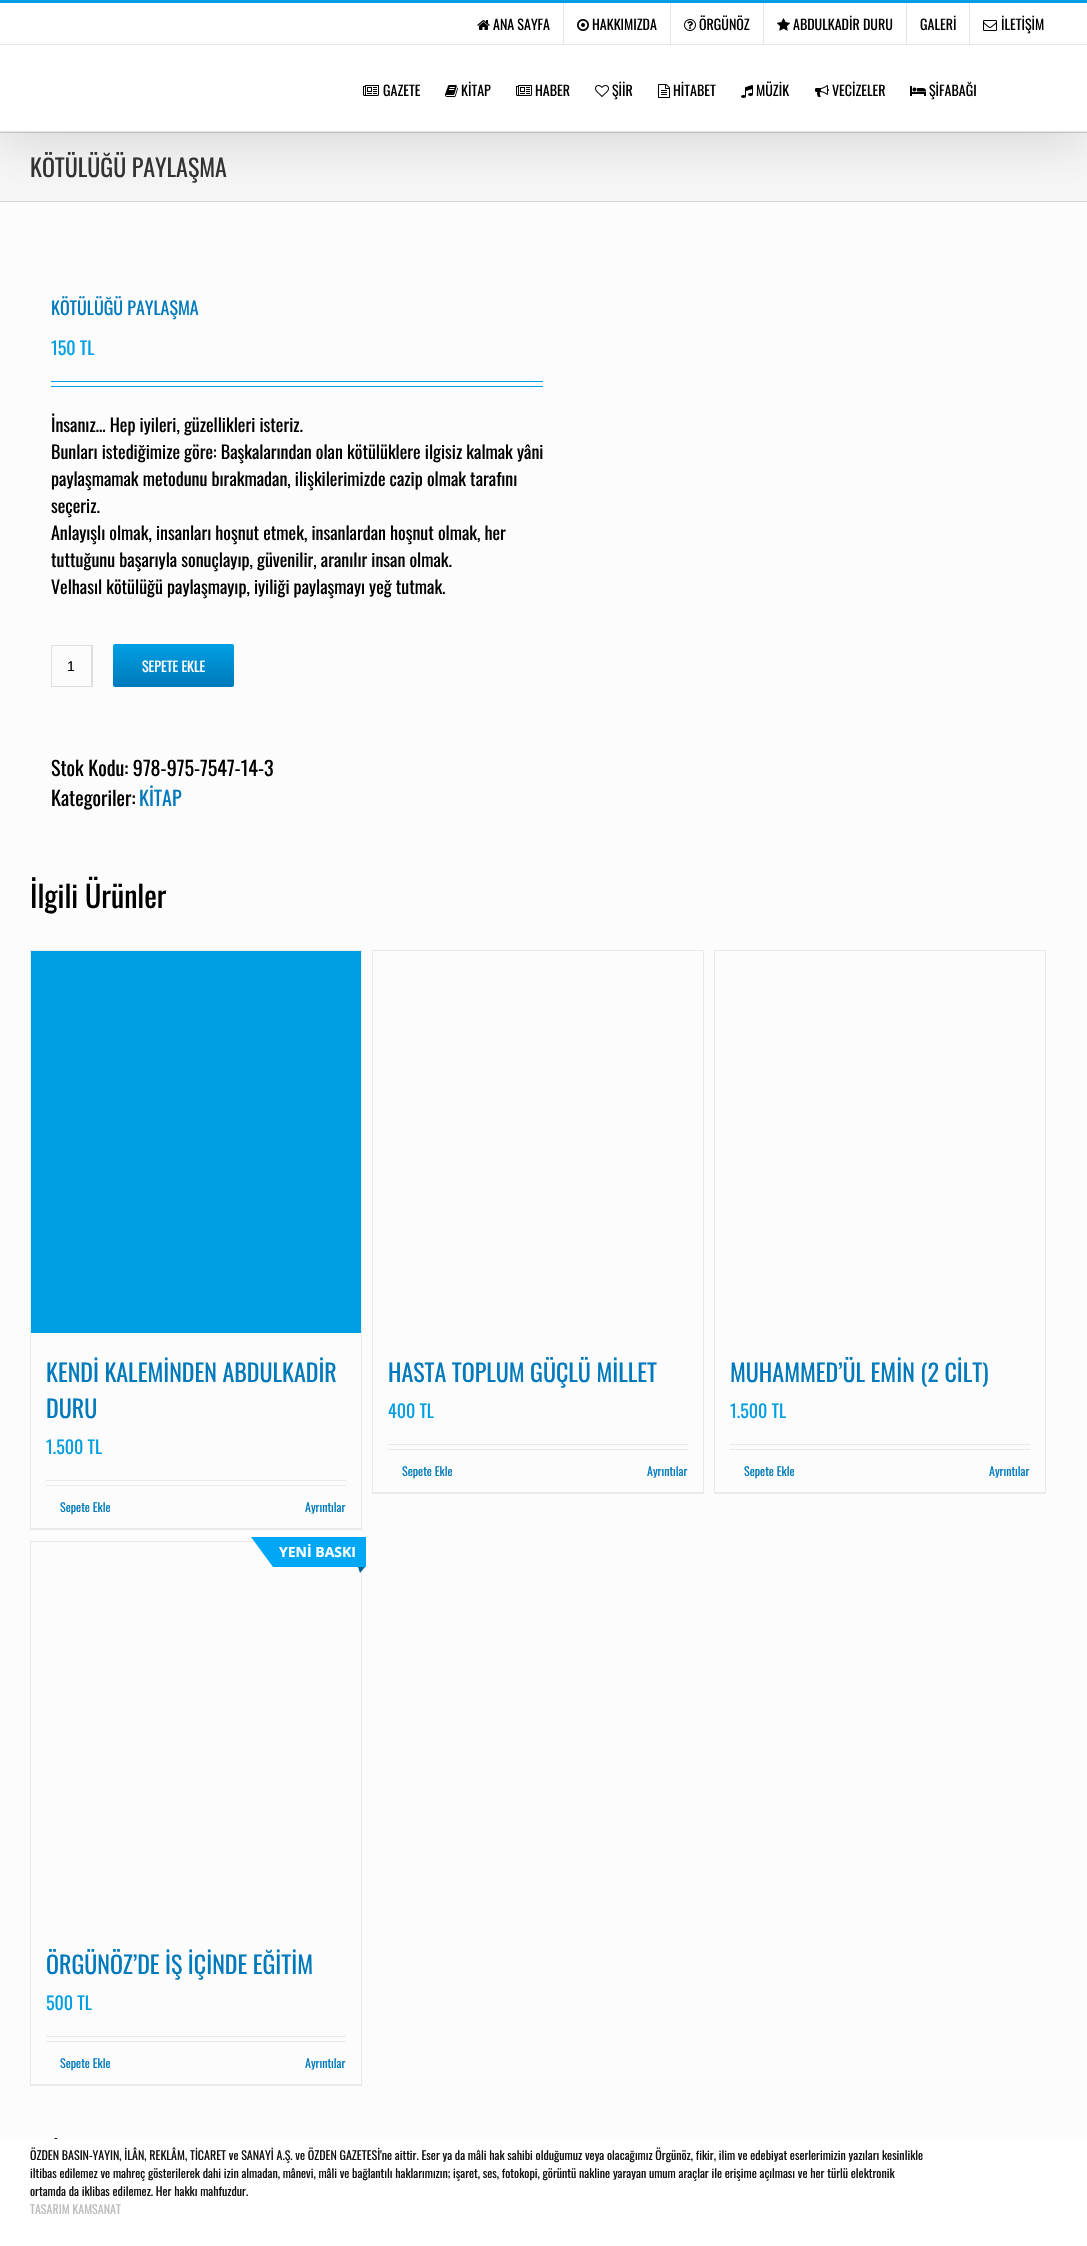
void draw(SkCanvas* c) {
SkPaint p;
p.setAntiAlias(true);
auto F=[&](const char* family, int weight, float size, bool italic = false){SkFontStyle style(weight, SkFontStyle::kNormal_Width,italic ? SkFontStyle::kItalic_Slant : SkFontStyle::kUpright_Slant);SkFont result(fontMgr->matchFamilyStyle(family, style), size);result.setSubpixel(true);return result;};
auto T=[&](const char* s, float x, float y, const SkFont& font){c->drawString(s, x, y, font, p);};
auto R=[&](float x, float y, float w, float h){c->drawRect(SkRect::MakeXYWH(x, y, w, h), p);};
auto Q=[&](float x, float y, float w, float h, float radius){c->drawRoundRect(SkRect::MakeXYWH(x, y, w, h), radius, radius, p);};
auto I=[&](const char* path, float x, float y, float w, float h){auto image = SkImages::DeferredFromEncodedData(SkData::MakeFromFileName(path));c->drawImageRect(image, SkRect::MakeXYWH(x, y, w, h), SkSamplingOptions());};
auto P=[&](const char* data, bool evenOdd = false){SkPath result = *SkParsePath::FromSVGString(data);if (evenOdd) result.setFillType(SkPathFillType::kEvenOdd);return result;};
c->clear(0xffffffff);
p.setColor(0xfff6f6f6);
R(0,133,1087,68);
p.setColor(0xffd2d3d4);
R(0,132,1087,1);
R(0,201,1087,1);
p.setColor(0xfffcfcfc);
R(0,202,1087,1935);
p.setColor(0x24000000);
p.setMaskFilter(SkMaskFilter::MakeBlur(kNormal_SkBlurStyle, 25));
c->drawRect(SkRect::MakeXYWH(2,12,1083,128),p);
p.setMaskFilter(nullptr);
p.setColor(0xffffffff);
R(0,3,1087,41);
p.setColor(0xff009fe3);
R(0,0,1087,3);
p.setColor(0xffe5e5e5);
R(0,44,1087,1);
I("1.png",477,20,13,10);
auto f1 = F("Oswald",400,14);
p.setColor(0xff000000);
T("ANA SAYFA",493,30,f1);
p.setColor(0xffe5e5e5);
R(563,3,1,41);
I("2.png",577,19,12,12);
p.setColor(0xff000000);
T("HAKKIMIZDA",592,30,f1);
p.setColor(0xffe5e5e5);
R(670,3,1,41);
I("3.png",684,19,12,12);
p.setColor(0xff000000);
T("ÖRGÜNÖZ",699,30,f1);
p.setColor(0xffe5e5e5);
R(763,3,1,41);
I("4.png",777,18,13,13);
p.setColor(0xff000000);
T("ABDULKADİR DURU",793,30,f1);
p.setColor(0xffe5e5e5);
R(906,3,1,41);
p.setColor(0xff000000);
T("GALERİ",920,30,f1);
p.setColor(0xffe5e5e5);
R(969,3,1,41);
I("5.png",983,20,14,11);
p.setColor(0xff000000);
T("İLETİŞİM",1001,30,f1);
p.setColor(0xffffffff);
R(0,45,1087,86);
p.setColor(0xffe5e5e5);
R(0,131,1087,1);
I("6.png",363,85,16,11);
p.setColor(0xff000000);
T("GAZETE",383,96,f1);
I("7.png",445,85,13,12);
T("KİTAP",461,96,f1);
I("6.png",516,85,16,11);
T("HABER",535,96,f1);
I("8.png",595,85,14,12);
T("ŞİİR",612,96,f1);
I("9.png",658,84,12,14);
T("HİTABET",673,96,f1);
I("10.png",741,85,12,13);
T("MÜZİK",756,96,f1);
I("11.png",815,85,14,12);
T("VECİZELER",832,96,f1);
I("12.png",910,86,16,10);
T("ŞİFABAĞI",929,96,f1);
auto f2 = F("Oswald",400,24);
p.setColor(0xff333333);
T("KÖTÜLÜĞÜ PAYLAŞMA",30,177,f2);
auto f3 = F("Oswald",400,18);
p.setColor(0xff007abc);
T("KÖTÜLÜĞÜ PAYLAŞMA",51,315,f3);
p.setColor(0xff009fe3);
T("150 TL",51,355,f3);
R(51,381,492,1);
R(51,386,492,1);
p.setColor(0xff000000);
T("İnsanız… Hep iyileri, güzellikleri isteriz.",51,432,f3);
T("Bunları istediğimize göre: Başkalarından olan kötülüklere ilgisiz kalmak yâni",51,459,f3);
T("paylaşmamak metodunu bırakmadan, ilişkilerimizde cazip olmak tarafını",51,486,f3);
T("seçeriz.",51,513,f3);
T("Anlayışlı olmak, insanları hoşnut etmek, insanlardan hoşnut olmak, her",51,540,f3);
T("tuttuğunu başarıyla sonuçlayıp, güvenilir, aranılır insan olmak.",51,567,f3);
T("Velhasıl kötülüğü paylaşmayıp, iyiliği paylaşmayı yeğ tutmak.",51,594,f3);
p.setStroke(true);
p.setStrokeWidth(1);
p.setColor(0xffe0dede);
c->drawRect(SkRect::MakeXYWH(51.5,645.5,41,41),p);
p.setStroke(false);
R(91,646,1,40);
auto f4 = F("Liberation Sans",400,14);
p.setColor(0xff000000);
T("1",67,671,f4);
{
const SkColor colors[] = {0xff007abc,0xff009fe3};
const float stops[] = {0,1};
const SkPoint ends[] = {{174,687}, {174,644}};
p.setShader(SkGradientShader::MakeLinear(ends, colors, stops, 2, SkTileMode::kClamp));
p.setAlpha(255);
}
Q(113,644,121,43,2);
p.setShader(nullptr);
p.setColor(0xffffffff);
T("SEPETE EKLE",142,672,f1);
auto f5 = F("Oswald",400,20);
p.setColor(0xff000000);
T("Stok Kodu: 978-975-7547-14-3",51,776,f5);
T("Kategoriler:",51,806,f5);
p.setColor(0xff007abc);
T("KİTAP",139,806,f5);
auto f6 = F("Oswald",400,30);
p.setColor(0xff000000);
T("İlgili Ürünler",30,908,f6);
p.setColor(0xffebeaea);
R(30,950,332,1);
R(361,950,1,580);
R(30,1528,332,2);
R(30,950,1,580);
p.setColor(0xff009fe3);
R(31,951,330,382);
p.setColor(0xff007abc);
T("KENDİ KALEMİNDEN ABDULKADİR",46,1382,f2);
T("DURU",46,1418,f2);
p.setColor(0xff009fe3);
T("1.500 TL",46,1454,f3);
p.setColor(0xffebeaea);
R(46,1480,300,1);
R(46,1485,300,1);
auto f7 = F("Oswald",400,12);
p.setColor(0xff007abc);
T("Sepete Ekle",60,1512,f7);
T("Ayrıntılar",305,1512,f7);
p.setColor(0xffebeaea);
R(372,950,332,1);
R(703,950,1,544);
R(372,1492,332,2);
R(372,950,1,544);
p.setColor(0xff007abc);
T("HASTA TOPLUM GÜÇLÜ MİLLET",388,1382,f2);
p.setColor(0xff009fe3);
T("400 TL",388,1418,f3);
p.setColor(0xffebeaea);
R(388,1444,300,1);
R(388,1449,300,1);
p.setColor(0xff007abc);
T("Sepete Ekle",402,1476,f7);
T("Ayrıntılar",647,1476,f7);
p.setColor(0xffebeaea);
R(714,950,332,1);
R(1045,950,1,544);
R(714,1492,332,2);
R(714,950,1,544);
p.setColor(0xff007abc);
T("MUHAMMED’ÜL EMİN (2 CİLT)",730,1382,f2);
p.setColor(0xff009fe3);
T("1.500 TL",730,1418,f3);
p.setColor(0xffebeaea);
R(730,1444,300,1);
R(730,1449,300,1);
p.setColor(0xff007abc);
T("Sepete Ekle",744,1476,f7);
T("Ayrıntılar",989,1476,f7);
p.setColor(0xffebeaea);
R(30,1541,225,1);
R(361,1570,1,516);
R(30,2084,332,2);
R(30,1541,1,545);
p.setColor(0xff00a7f4);
R(273,1537,93,30);
c->drawPath(P("M273 1537v30l-22-30z"),p);
auto f8 = F("Open Sans",700,14);
p.setColor(0xffffffff);
T("YENİ BASKI",279,1557,f8);
p.setColor(0xff006492);
c->drawPath(P("M358 1567h7l-5 6z"),p);
p.setColor(0xff007abc);
T("ÖRGÜNÖZ’DE İŞ İÇİNDE EĞİTİM",46,1974,f2);
p.setColor(0xff009fe3);
T("500 TL",46,2010,f3);
p.setColor(0xffebeaea);
R(46,2036,300,1);
R(46,2041,300,1);
p.setColor(0xff007abc);
T("Sepete Ekle",60,2068,f7);
T("Ayrıntılar",305,2068,f7);
p.setColor(0xff111111);
T("-",54,2142,f7);
T("ÖZDEN BASIN-YAYIN, İLÂN, REKLÂM, TİCARET ve SANAYİ A.Ş. ve ÖZDEN GAZETESİ'ne aittir. Eser ya da mâli hak sahibi olduğumuz veya olacağımız Örgünöz, fikir, ilim ve edebiyat eserlerimizin yazıları kesinlikle",30,2160,f7);
T("iltibas edilemez ve mahreç gösterilerek dahi izin almadan, mânevi, mâli ve bağlantılı haklarımızın; işaret, ses, fotokopi, görüntü nakline yarayan umum araçlar ile erişime açılması ve her türlü elektronik",30,2178,f7);
T("ortamda da iklibas edilemez. Her hakkı mahfuzdur.",30,2196,f7);
p.setColor(0xffbcbcbc);
T("TASARIM KAMSANAT",30,2214,f7);
}
